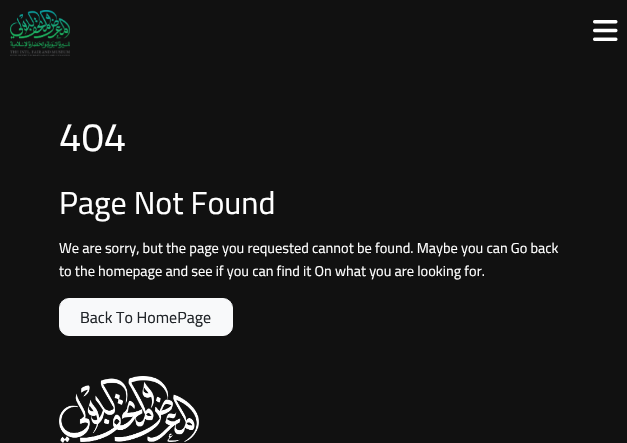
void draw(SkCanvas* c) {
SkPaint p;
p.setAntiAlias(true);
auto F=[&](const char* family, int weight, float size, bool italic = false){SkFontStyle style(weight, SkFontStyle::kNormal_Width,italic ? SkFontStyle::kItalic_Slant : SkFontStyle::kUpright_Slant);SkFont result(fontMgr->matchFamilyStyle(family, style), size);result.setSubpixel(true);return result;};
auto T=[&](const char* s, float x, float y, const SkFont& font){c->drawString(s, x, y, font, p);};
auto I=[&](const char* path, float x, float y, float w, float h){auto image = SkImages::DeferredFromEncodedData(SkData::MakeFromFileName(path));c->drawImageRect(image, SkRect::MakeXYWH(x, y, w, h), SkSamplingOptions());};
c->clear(0xff111111);
I("1.png",10,10,60,46);
I("2.png",593,20,25,21);
auto f1 = F("Cairo",400,40);
p.setColor(0xffffffff);
T("404",59,151,f1);
auto f2 = F("Cairo",400,32);
T("Page Not Found",59,214,f2);
auto f3 = F("Cairo",400,14.4);
T("We are sorry, but the page you requested cannot be found. Maybe you can Go back",59,253,f3);
T("to the homepage and see if you can find it On what you are looking for.",59,276,f3);
p.setColor(0xfff8f9fa);
c->drawRoundRect(SkRect::MakeXYWH(59.5,298.5,173,37),9.5,9.5,p);
p.setStroke(true);
p.setStrokeWidth(1);
c->drawRoundRect(SkRect::MakeXYWH(59.5,298.5,173,37),9.5,9.5,p);
auto f4 = F("Cairo",400,16);
p.setStroke(false);
p.setColor(0xff212529);
T("Back To HomePage",80,323,f4);
I("3.png",59,376,140,67);
}
